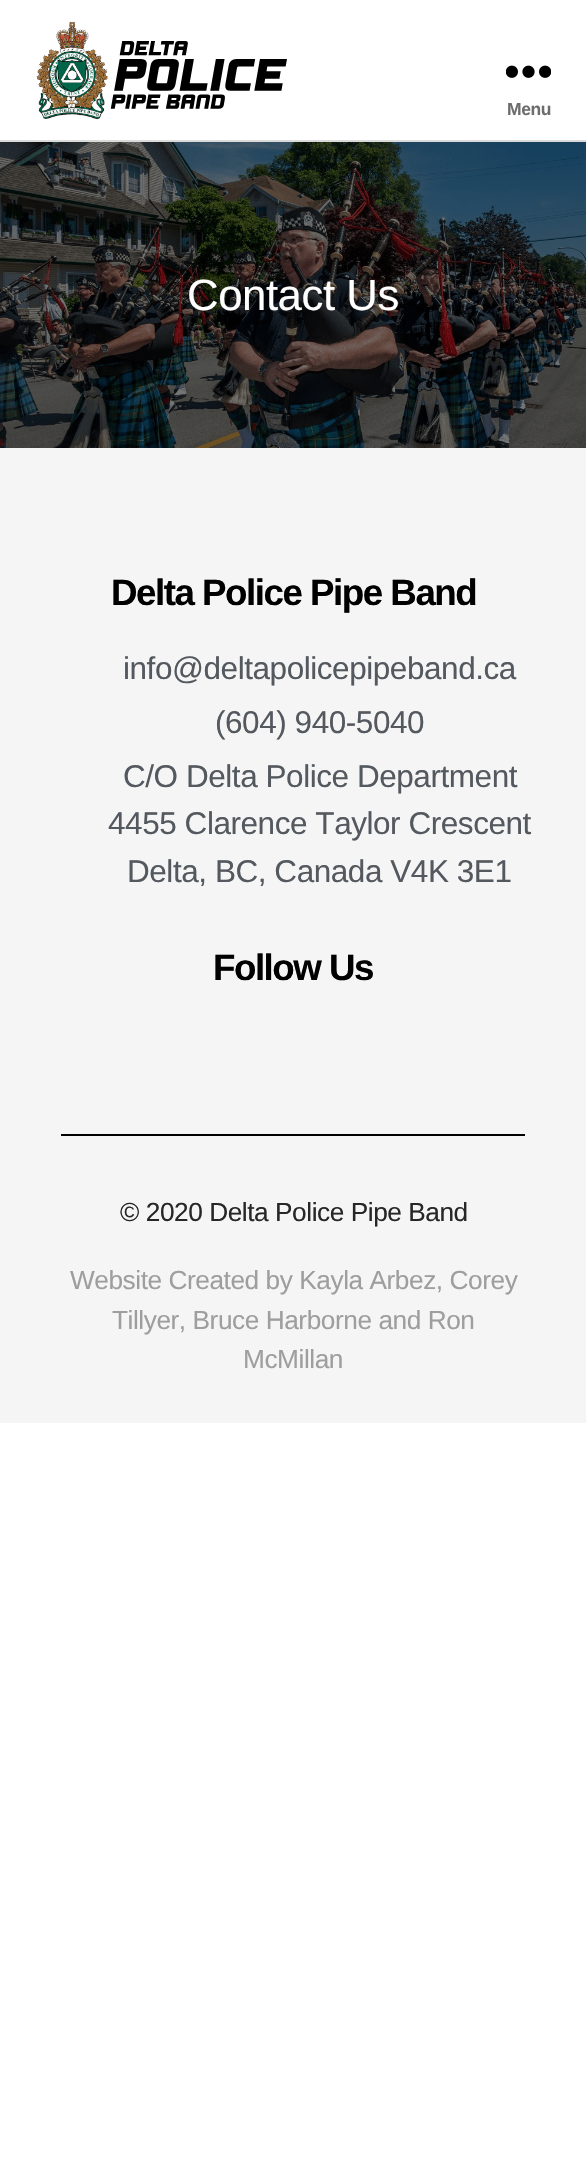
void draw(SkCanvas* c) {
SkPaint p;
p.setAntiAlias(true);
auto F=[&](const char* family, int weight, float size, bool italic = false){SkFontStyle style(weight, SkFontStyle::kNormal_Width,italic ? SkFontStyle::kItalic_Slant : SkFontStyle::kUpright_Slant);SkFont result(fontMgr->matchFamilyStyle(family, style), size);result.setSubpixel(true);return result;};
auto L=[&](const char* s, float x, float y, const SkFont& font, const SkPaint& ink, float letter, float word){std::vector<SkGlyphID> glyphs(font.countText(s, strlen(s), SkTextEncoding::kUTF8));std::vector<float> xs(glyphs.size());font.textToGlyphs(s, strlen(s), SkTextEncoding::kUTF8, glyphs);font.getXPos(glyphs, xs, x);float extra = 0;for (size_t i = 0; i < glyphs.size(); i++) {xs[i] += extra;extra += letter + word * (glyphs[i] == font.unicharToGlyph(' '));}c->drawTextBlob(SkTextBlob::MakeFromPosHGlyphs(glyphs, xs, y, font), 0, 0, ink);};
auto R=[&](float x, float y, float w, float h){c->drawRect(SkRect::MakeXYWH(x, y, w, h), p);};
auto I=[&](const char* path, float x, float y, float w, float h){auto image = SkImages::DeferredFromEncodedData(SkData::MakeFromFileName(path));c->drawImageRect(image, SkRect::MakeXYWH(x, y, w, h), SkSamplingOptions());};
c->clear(0xffffffff);
p.setColor(0xffdadada);
R(0,140,586,2);
I("1.png",36,21,251,99);
I("2.png",506,65,45,13);
auto f1 = F("Liberation Sans",700,17.5);
p.setColor(0xff6d6d6d);
L("Menu",507,115,f1,p,-.45,0);
I("3.png",0,142,586,306);
auto f2 = F("Liberation Sans",400,43.75);
p.setColor(0xffffffff);
L("Contact Us",187,310,f2,p,-.45,0);
p.setColor(0xfff5f5f5);
R(0,448,586,975);
auto f3 = F("Liberation Sans",700,36.75);
p.setColor(0xff000000);
L("Delta Police Pipe Band",111,605,f3,p,-1.5,0);
auto f4 = F("Liberation Sans",400,31.5);
p.setColor(0xff54595f);
L("info@deltapolicepipeband.ca",123,679,f4,p,-.45,0);
L("(604) 940-5040",215,733,f4,p,-.45,0);
L("C/O Delta Police Department",123,787,f4,p,-.45,0);
L("4455 Clarence Taylor Crescent",108,834,f4,p,-.45,0);
L("Delta, BC, Canada V4K 3E1",127,882,f4,p,-.45,0);
p.setColor(0xff000000);
L("Follow Us",213,980,f3,p,-1.5,0);
R(61,1134,464,2);
auto f5 = F("Liberation Sans",400,26.25);
p.setColor(0xff272727);
L("© 2020 Delta Police Pipe Band",120,1221,f5,p,-.45,0);
p.setColor(0xff9e9e9e);
L("Website Created by Kayla Arbez, Corey",70,1289,f5,p,-.45,0);
L("Tillyer, Bruce Harborne and Ron",112,1329,f5,p,-.45,0);
L("McMillan",243,1368,f5,p,-.45,0);
}
